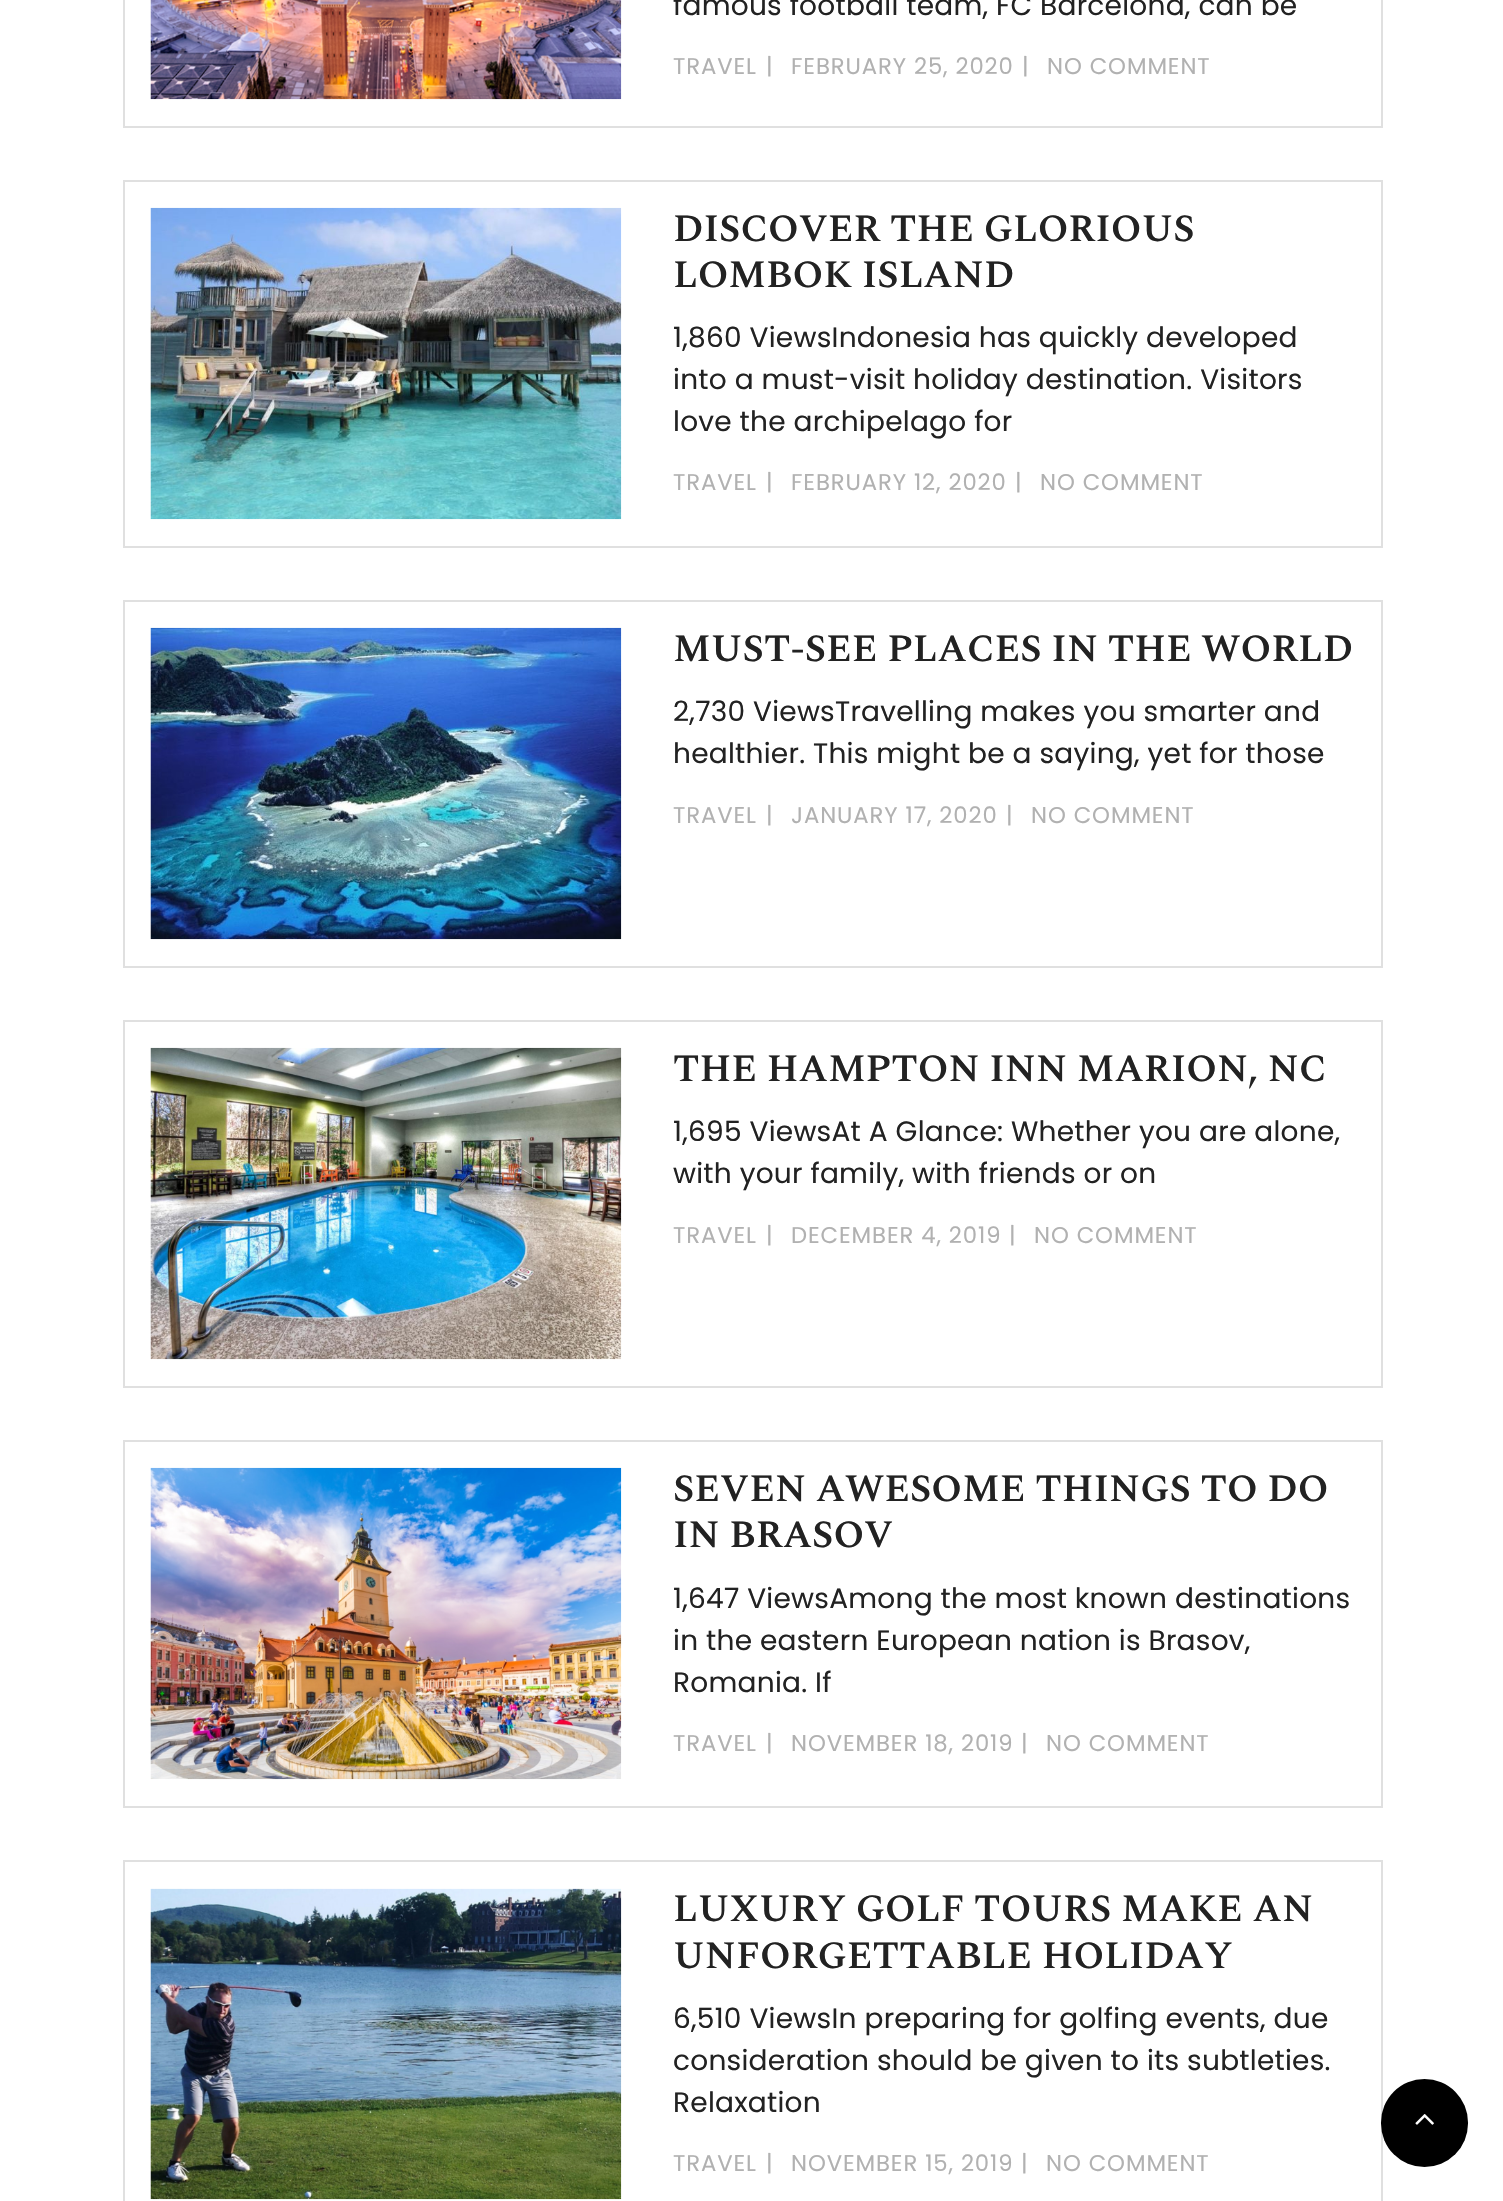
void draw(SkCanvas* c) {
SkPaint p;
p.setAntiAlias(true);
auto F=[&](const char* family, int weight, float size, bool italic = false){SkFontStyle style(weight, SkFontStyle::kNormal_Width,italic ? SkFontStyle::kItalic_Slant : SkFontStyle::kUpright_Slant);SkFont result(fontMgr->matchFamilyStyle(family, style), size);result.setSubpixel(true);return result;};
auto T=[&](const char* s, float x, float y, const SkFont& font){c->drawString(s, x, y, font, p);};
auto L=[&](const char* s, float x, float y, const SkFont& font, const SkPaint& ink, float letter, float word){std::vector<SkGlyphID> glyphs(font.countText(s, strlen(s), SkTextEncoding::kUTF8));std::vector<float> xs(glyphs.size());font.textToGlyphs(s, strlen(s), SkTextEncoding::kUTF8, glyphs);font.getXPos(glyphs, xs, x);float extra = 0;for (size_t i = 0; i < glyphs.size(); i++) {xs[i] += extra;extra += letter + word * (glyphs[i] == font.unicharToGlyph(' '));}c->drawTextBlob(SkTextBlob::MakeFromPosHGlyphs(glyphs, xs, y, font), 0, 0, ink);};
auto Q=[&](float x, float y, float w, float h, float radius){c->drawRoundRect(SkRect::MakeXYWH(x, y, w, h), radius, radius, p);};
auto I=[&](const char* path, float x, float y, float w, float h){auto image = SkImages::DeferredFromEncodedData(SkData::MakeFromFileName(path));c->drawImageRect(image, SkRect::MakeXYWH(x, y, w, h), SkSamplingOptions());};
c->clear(0xffffffff);
p.setStroke(true);
p.setStrokeWidth(2);
p.setColor(0xffe0e0e0);
c->drawRect(SkRect::MakeXYWH(124,-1,1258,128),p);
I("1.png",150,0,472,100);
auto f1 = F("Poppins",400,28);
p.setStroke(false);
p.setColor(0xff222222);
L("famous football team, FC Barcelona, can be",673,15,f1,p,.25,0);
auto f2 = F("Poppins",400,22.75);
p.setColor(0xffb1b1b1);
L("TRAVEL",673,74,f2,p,.9,0);
L("|",766,74,f2,p,.9,0);
L("FEBRUARY 25, 2020",791,74,f2,p,.9,0);
L("|",1022,74,f2,p,.9,0);
L("NO COMMENT",1047,74,f2,p,.9,0);
p.setStroke(true);
p.setColor(0xffe0e0e0);
c->drawRect(SkRect::MakeXYWH(124,181,1258,366),p);
I("2.png",150,207,472,313);
auto f3 = F("Spectral SC",600,38.5);
p.setStroke(false);
p.setColor(0xff222222);
T("DISCOVER THE GLORIOUS",673,241,f3);
T("LOMBOK ISLAND",673,287,f3);
L("1,860 ViewsIndonesia has quickly developed",673,347,f1,p,.25,0);
L("into a must-visit holiday destination. Visitors",673,389,f1,p,.25,0);
L("love the archipelago for",673,431,f1,p,.25,0);
p.setColor(0xffb1b1b1);
L("TRAVEL",673,490,f2,p,.9,0);
L("|",766,490,f2,p,.9,0);
L("FEBRUARY 12, 2020",791,490,f2,p,.9,0);
L("|",1015,490,f2,p,.9,0);
L("NO COMMENT",1040,490,f2,p,.9,0);
p.setStroke(true);
p.setColor(0xffe0e0e0);
c->drawRect(SkRect::MakeXYWH(124,601,1258,366),p);
I("3.png",150,627,472,313);
p.setStroke(false);
p.setColor(0xff222222);
T("MUST-SEE PLACES IN THE WORLD",673,661,f3);
L("2,730 ViewsTravelling makes you smarter and",673,721,f1,p,.25,0);
L("healthier. This might be a saying, yet for those",673,763,f1,p,.25,0);
p.setColor(0xffb1b1b1);
L("TRAVEL",673,823,f2,p,.9,0);
L("|",766,823,f2,p,.9,0);
L("JANUARY 17, 2020",791,823,f2,p,.9,0);
L("|",1006,823,f2,p,.9,0);
L("NO COMMENT",1031,823,f2,p,.9,0);
p.setStroke(true);
p.setColor(0xffe0e0e0);
c->drawRect(SkRect::MakeXYWH(124,1021,1258,366),p);
I("4.png",150,1047,472,313);
p.setStroke(false);
p.setColor(0xff222222);
T("THE HAMPTON INN MARION, NC",673,1081,f3);
L("1,695 ViewsAt A Glance: Whether you are alone,",673,1141,f1,p,.25,0);
L("with your family, with friends or on",673,1183,f1,p,.25,0);
p.setColor(0xffb1b1b1);
L("TRAVEL",673,1243,f2,p,.9,0);
L("|",766,1243,f2,p,.9,0);
L("DECEMBER 4, 2019",791,1243,f2,p,.9,0);
L("|",1009,1243,f2,p,.9,0);
L("NO COMMENT",1034,1243,f2,p,.9,0);
p.setStroke(true);
p.setColor(0xffe0e0e0);
c->drawRect(SkRect::MakeXYWH(124,1441,1258,366),p);
I("5.png",150,1467,472,313);
p.setStroke(false);
p.setColor(0xff222222);
T("SEVEN AWESOME THINGS TO DO",673,1501,f3);
T("IN BRASOV",673,1547,f3);
L("1,647 ViewsAmong the most known destinations",673,1608,f1,p,.25,0);
L("in the eastern European nation is Brasov,",673,1650,f1,p,.25,0);
L("Romania. If",673,1692,f1,p,.25,0);
p.setColor(0xffb1b1b1);
L("TRAVEL",673,1751,f2,p,.9,0);
L("|",766,1751,f2,p,.9,0);
L("NOVEMBER 18, 2019",791,1751,f2,p,.9,0);
L("|",1021,1751,f2,p,.9,0);
L("NO COMMENT",1046,1751,f2,p,.9,0);
p.setStroke(true);
p.setColor(0xffe0e0e0);
c->drawRect(SkRect::MakeXYWH(124,1861,1258,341),p);
I("6.png",150,1888,472,312);
p.setStroke(false);
p.setColor(0xff222222);
T("LUXURY GOLF TOURS MAKE AN",673,1921,f3);
T("UNFORGETTABLE HOLIDAY",673,1968,f3);
L("6,510 ViewsIn preparing for golfing events, due",673,2028,f1,p,.25,0);
L("consideration should be given to its subtleties.",673,2070,f1,p,.25,0);
L("Relaxation",673,2112,f1,p,.25,0);
p.setColor(0xffb1b1b1);
L("TRAVEL",673,2171,f2,p,.9,0);
L("|",766,2171,f2,p,.9,0);
L("NOVEMBER 15, 2019",791,2171,f2,p,.9,0);
L("|",1021,2171,f2,p,.9,0);
L("NO COMMENT",1046,2171,f2,p,.9,0);
p.setColor(0xff000000);
Q(1381,2079,87,88,43.5);
I("7.png",1415,2114,19,11);
}
